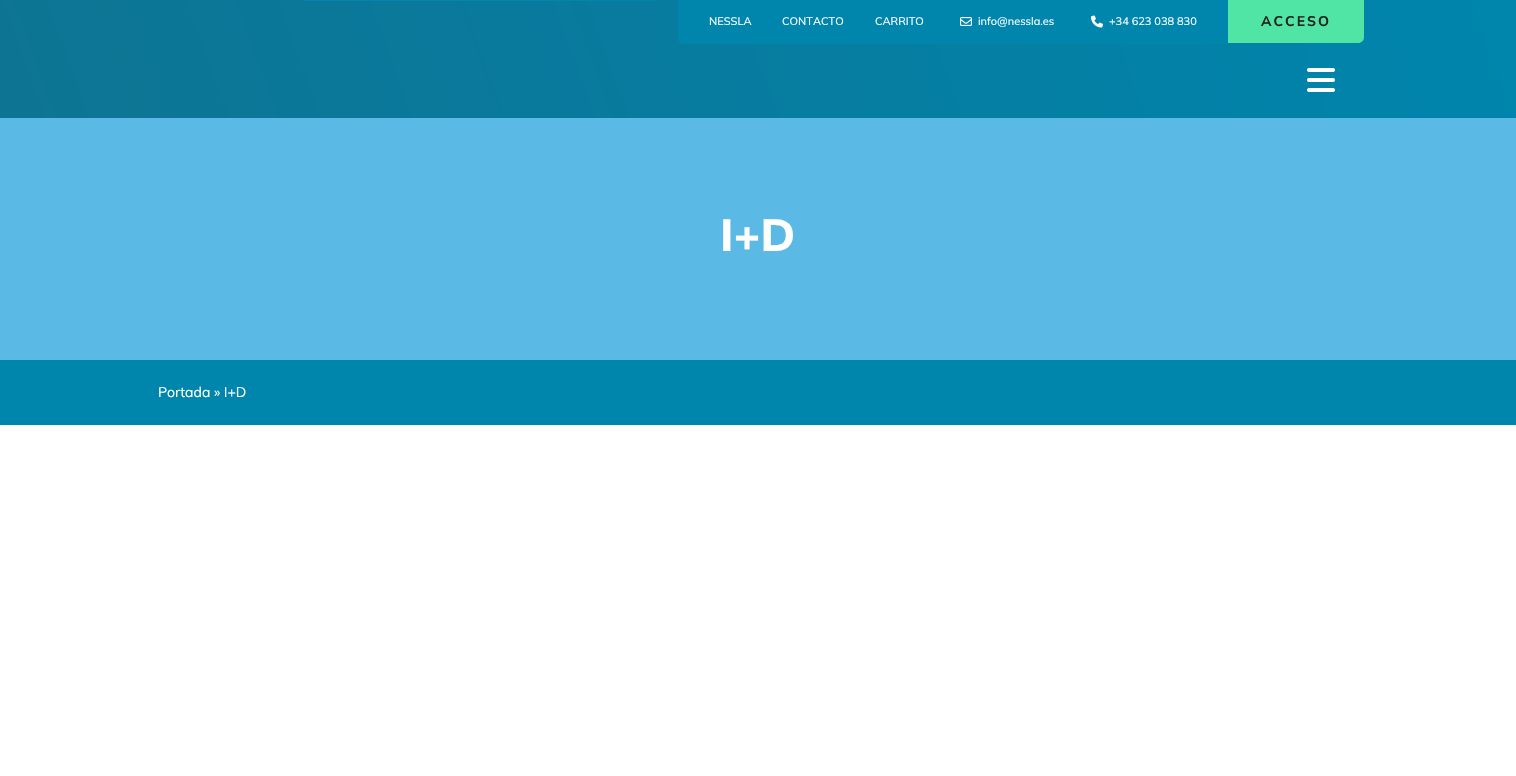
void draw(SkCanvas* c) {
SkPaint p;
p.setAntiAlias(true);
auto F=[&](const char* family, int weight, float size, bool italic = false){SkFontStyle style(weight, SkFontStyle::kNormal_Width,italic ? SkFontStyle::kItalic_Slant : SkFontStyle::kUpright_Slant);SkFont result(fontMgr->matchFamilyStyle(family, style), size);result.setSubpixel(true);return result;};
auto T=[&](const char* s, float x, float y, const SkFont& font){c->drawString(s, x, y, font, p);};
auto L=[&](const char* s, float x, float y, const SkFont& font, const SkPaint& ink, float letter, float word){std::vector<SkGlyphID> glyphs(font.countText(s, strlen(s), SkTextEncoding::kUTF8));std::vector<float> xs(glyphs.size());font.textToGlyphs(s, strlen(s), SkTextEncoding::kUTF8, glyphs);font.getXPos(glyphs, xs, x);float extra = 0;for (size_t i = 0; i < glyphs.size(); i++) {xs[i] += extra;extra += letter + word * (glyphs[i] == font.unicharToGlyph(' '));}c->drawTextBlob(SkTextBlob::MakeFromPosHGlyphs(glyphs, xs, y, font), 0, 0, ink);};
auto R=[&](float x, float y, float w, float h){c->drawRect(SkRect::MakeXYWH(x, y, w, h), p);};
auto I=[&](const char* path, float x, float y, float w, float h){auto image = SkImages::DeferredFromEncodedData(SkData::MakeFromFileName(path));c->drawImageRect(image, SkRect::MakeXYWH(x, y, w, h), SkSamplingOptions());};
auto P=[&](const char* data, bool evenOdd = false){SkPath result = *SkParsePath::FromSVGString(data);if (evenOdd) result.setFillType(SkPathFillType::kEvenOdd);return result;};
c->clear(0xffffffff);
{
const SkColor colors[] = {0xff0085ad,0xff0e7493};
const float stops[] = {0,1};
const SkPoint ends[] = {{1446,-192}, {70,310}};
p.setShader(SkGradientShader::MakeLinear(ends, colors, stops, 2, SkTileMode::kClamp));
p.setAlpha(255);
}
R(0,0,1516,118);
p.setShader(nullptr);
p.setColor(0xff0085ad);
c->drawPath(P("M303 0h351v1h-350c-.5 0-1-.5-1-1z"),p);
c->drawPath(P("M678 0h550v44h-544c-3.5 0-6-2.5-6-6z"),p);
auto f1 = F("Mulish",400,11);
p.setColor(0xffffffff);
T("NESSLA",709,25,f1);
T("CONTACTO",782,25,f1);
T("CARRITO",875,25,f1);
I("1.png",960,17,12,9);
T("info@nessla.es",978,25,f1);
I("2.png",1091,15,12,13);
T("+34 623 038 830",1109,25,f1);
p.setColor(0xff51e5a5);
c->drawPath(P("M1228 0h136v37c0 3.5-2.5 6-6 6h-130z"),p);
auto f2 = F("Mulish",700,14);
p.setColor(0xff232323);
L("ACCESO",1261,26,f2,p,2,0);
I("3.png",1307,68,28,24);
p.setColor(0xff5bbae5);
R(0,118,1516,242);
auto f3 = F("Mulish",800,45);
p.setColor(0xffffffff);
T("I+D",720,251,f3);
p.setColor(0xff0085ad);
R(0,360,1516,65);
auto f4 = F("Mulish",400,14);
p.setColor(0xffffffff);
T("Portada » I+D",158,397,f4);
}
